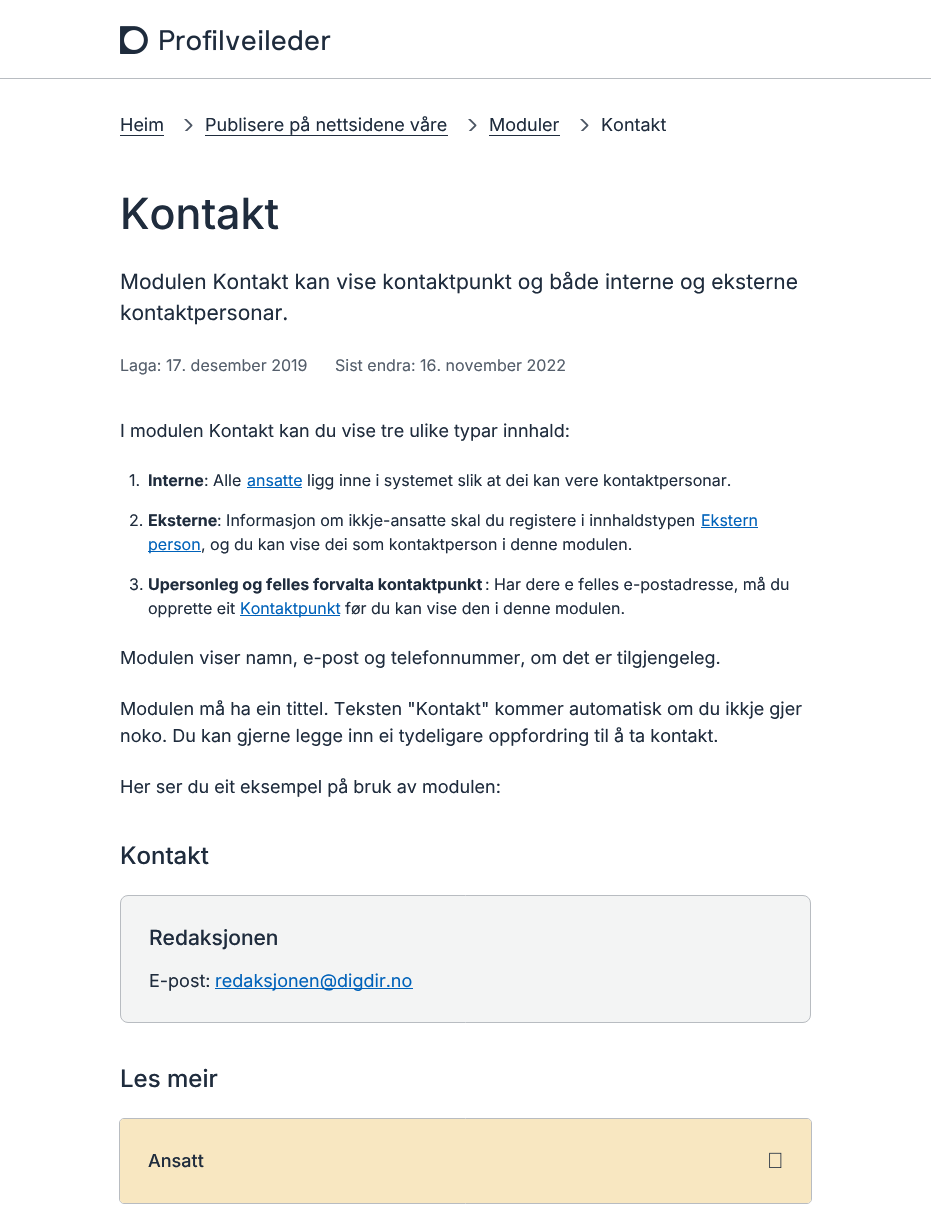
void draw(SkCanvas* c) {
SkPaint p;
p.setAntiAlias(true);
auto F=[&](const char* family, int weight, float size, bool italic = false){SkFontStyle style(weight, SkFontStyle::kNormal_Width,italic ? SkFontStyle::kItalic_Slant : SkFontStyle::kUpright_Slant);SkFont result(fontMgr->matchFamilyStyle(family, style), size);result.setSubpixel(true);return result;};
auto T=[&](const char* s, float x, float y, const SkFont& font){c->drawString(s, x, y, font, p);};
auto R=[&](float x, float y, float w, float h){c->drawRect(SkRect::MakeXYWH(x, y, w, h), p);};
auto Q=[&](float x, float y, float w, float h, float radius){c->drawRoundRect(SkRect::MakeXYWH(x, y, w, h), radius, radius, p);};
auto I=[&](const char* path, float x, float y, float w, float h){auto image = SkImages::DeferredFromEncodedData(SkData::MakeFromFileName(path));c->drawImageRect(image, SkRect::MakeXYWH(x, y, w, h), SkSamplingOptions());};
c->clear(0xffffffff);
p.setColor(0xffb8bcc1);
R(0,78,931,1);
I("1.png",120,26,211,28);
auto f1 = F("Inter",400,18);
p.setColor(0xff1f2c3d);
T("Heim",120,131,f1);
R(120,135,44,1);
I("2.png",184,119,9,12);
T("Publisere på nettsidene våre",205,131,f1);
R(205,135,243,1);
I("2.png",468,119,9,12);
T("Moduler",489,131,f1);
R(489,135,71,1);
I("2.png",580,119,9,12);
T("Kontakt",601,131,f1);
auto f2 = F("Inter",500,43);
T("Kontakt",120,229,f2);
auto f3 = F("Inter",400,21);
T("Modulen Kontakt kan vise kontaktpunkt og både interne og eksterne",120,289,f3);
T("kontaktpersonar.",120,320,f3);
auto f4 = F("Inter",400,16);
p.setColor(0xff545e6b);
T("Laga: 17. desember 2019",120,371,f4);
T("Sist endra: 16. november 2022",335,371,f4);
p.setColor(0xff1f2c3d);
T("I modulen Kontakt kan du vise tre ulike typar innhald:",120,437,f1);
T("1.",129,486,f4);
auto f5 = F("Inter",700,16);
T("Interne",148,486,f5);
T(": Alle",204,486,f4);
p.setColor(0xff0062ba);
T("ansatte",247,486,f4);
R(247,487,55,1);
p.setColor(0xff1f2c3d);
T("ligg inne i systemet slik at dei kan vere kontaktpersonar.",307,486,f4);
T("2.",129,526,f4);
T("Eksterne",148,526,f5);
T(": Informasjon om ikkje-ansatte skal du registere i innhaldstypen",217,526,f4);
p.setColor(0xff0062ba);
T("Ekstern",701,526,f4);
R(701,527,57,1);
R(148,551,53,1);
T("person",148,550,f4);
p.setColor(0xff1f2c3d);
T(", og du kan vise dei som kontaktperson i denne modulen.",201,550,f4);
T("3.",129,590,f4);
T("Upersonleg og felles forvalta kontaktpunkt",148,590,f5);
T(": Har dere e felles e-postadresse, må du",485,590,f4);
T("opprette eit",148,614,f4);
p.setColor(0xff0062ba);
R(240,615,100,1);
T("Kontaktpunkt",240,614,f4);
p.setColor(0xff1f2c3d);
T("før du kan vise den i denne modulen.",345,614,f4);
T("Modulen viser namn, e-post og telefonnummer, om det er tilgjengeleg.",120,664,f1);
T("Modulen må ha ein tittel. Teksten \"Kontakt\" kommer automatisk om du ikkje gjer",120,715,f1);
T("noko. Du kan gjerne legge inn ei tydeligare oppfordring til å ta kontakt.",120,742,f1);
T("Her ser du eit eksempel på bruk av modulen:",120,793,f1);
auto f6 = F("Inter",500,24);
T("Kontakt",120,864,f6);
p.setColor(0xfff3f4f4);
c->drawRoundRect(SkRect::MakeXYWH(120.5,895.5,690,127),7.5,7.5,p);
p.setStroke(true);
p.setStrokeWidth(1);
p.setColor(0xffb8bcc1);
c->drawRoundRect(SkRect::MakeXYWH(120.5,895.5,690,127),7.5,7.5,p);
auto f7 = F("Inter",500,21);
p.setStroke(false);
p.setColor(0xff1f2c3d);
T("Redaksjonen",149,945,f7);
T("E-post:",149,987,f1);
p.setColor(0xff0062ba);
R(215,988,198,1);
T("redaksjonen@digdir.no",215,987,f1);
p.setColor(0xff1f2c3d);
T("Les meir",120,1087,f6);
p.setStroke(true);
p.setColor(0xffb8bcc1);
c->drawRoundRect(SkRect::MakeXYWH(119.5,1118.5,692,85),4.5,4.5,p);
p.setStroke(false);
p.setColor(0xfff8e7c1);
Q(120,1119,691,84,4);
auto f8 = F("Inter",500,18);
p.setColor(0xff1f2c3d);
T("Ansatt",148,1167,f8);
I("3.png",769,1152,13,16);
}
